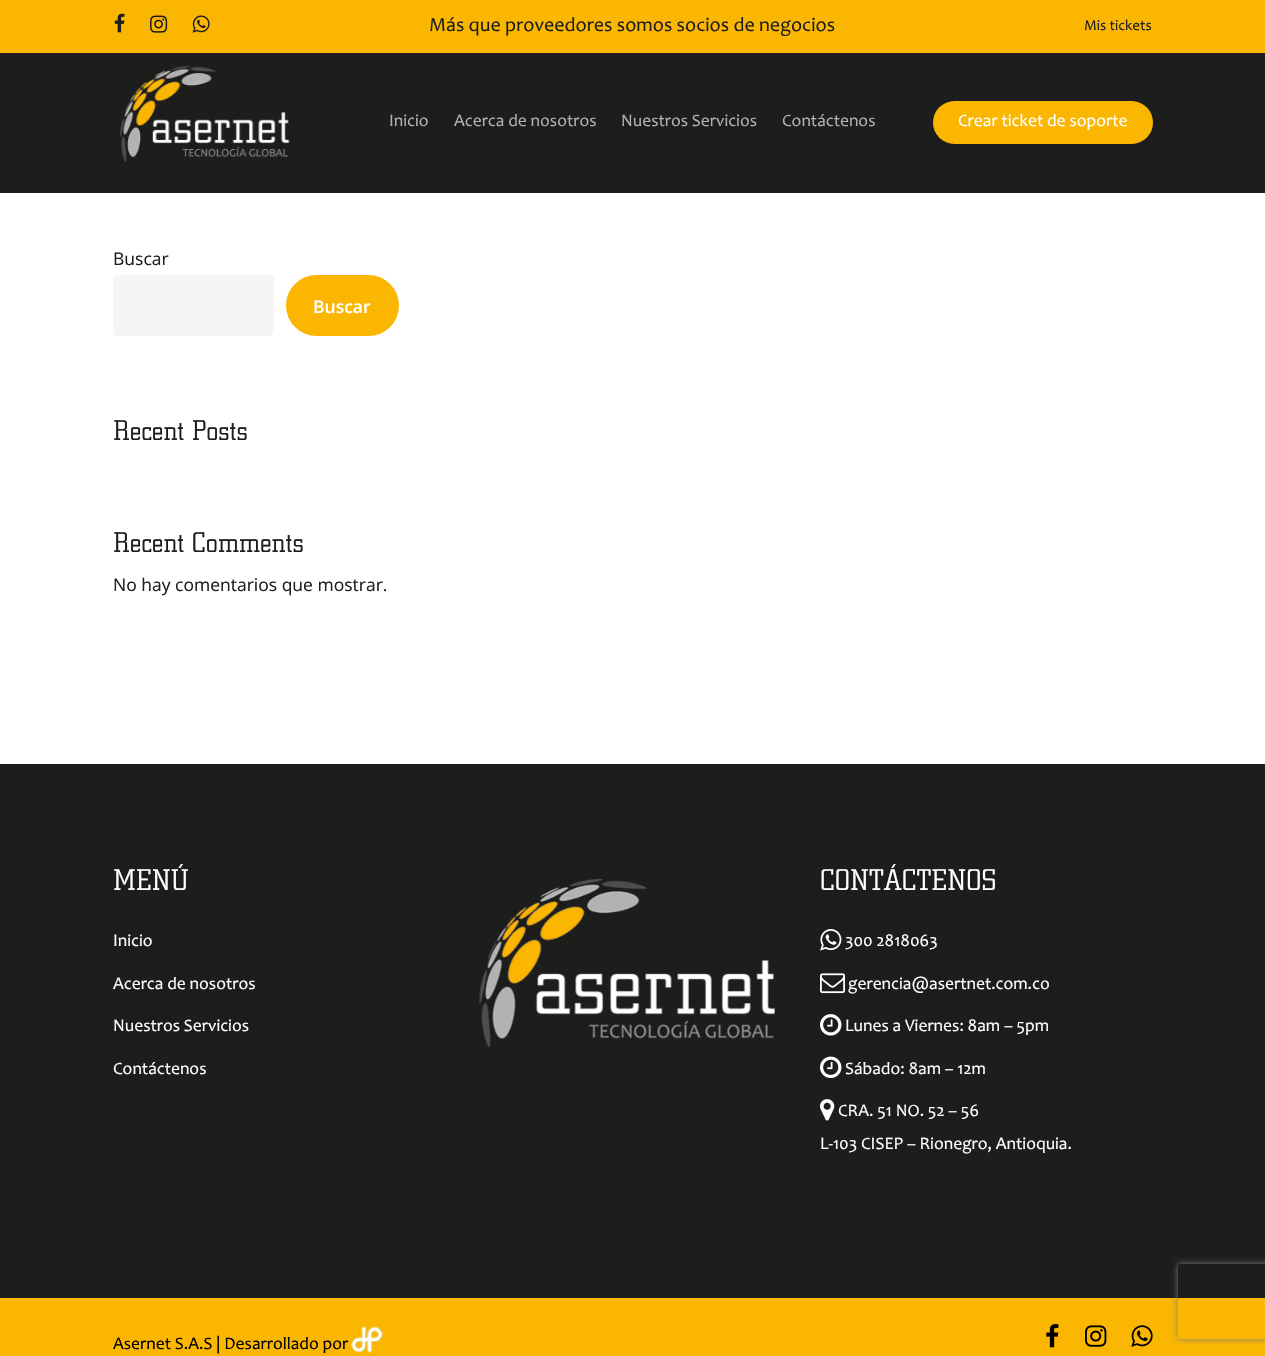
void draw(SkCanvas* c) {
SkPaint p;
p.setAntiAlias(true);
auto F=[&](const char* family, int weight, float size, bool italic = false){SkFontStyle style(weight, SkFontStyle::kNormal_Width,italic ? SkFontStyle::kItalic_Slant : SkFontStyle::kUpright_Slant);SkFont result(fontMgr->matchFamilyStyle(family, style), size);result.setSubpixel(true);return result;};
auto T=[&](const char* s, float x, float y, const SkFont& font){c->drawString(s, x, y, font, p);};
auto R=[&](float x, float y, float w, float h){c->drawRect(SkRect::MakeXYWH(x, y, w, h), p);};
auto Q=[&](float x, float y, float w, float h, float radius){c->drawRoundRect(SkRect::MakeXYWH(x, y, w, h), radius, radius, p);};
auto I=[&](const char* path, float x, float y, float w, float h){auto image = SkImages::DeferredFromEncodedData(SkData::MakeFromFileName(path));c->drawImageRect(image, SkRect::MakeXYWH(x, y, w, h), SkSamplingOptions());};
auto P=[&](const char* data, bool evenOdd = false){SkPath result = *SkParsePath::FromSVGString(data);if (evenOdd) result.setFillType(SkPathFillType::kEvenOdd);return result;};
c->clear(0xffffffff);
p.setColor(0xfffab600);
R(0,0,1265,53);
I("1.png",114,13,11,20);
I("2.png",150,15,18,18);
I("3.png",192,15,18,18);
auto f1 = F("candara",400,20);
p.setColor(0xff1d1d1d);
T("Más que proveedores somos socios de negocios",429,31,f1);
auto f2 = F("candara",400,15);
T("Mis tickets",1084,30,f2);
R(0,53,1265,140);
I("4.png",120,65,170,97);
auto f3 = F("candara",400,17.5);
p.setColor(0xffb2b2b2);
T("Inicio",389,126,f3);
T("Acerca de nosotros",454,126,f3);
T("Nuestros Servicios",621,126,f3);
T("Contáctenos",782,126,f3);
p.setColor(0xfffab600);
Q(933,101,220,43,21.5);
p.setColor(0xffffffff);
T("Crear ticket de soporte",958,126,f3);
auto f4 = F("Open Sans",400,17.5);
p.setColor(0xff1d1d1d);
T("Buscar",113,265,f4);
p.setColor(0xfff5f5f5);
Q(113,275,161,61,5);
p.setColor(0xfffab600);
Q(286,275,113,61,30.5);
auto f5 = F("Open Sans",600,17.5);
p.setColor(0xffffffff);
T("Buscar",313,313,f5);
auto f6 = F("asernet",400,29.75);
p.setColor(0xff1d1d1d);
T("Recent Posts",113,440,f6);
T("Recent Comments",113,552,f6);
T("No hay comentarios que mostrar.",113,591,f4);
R(0,764,1265,534);
auto f7 = F("asernet",400,31.25);
p.setColor(0xffffffff);
T("MENÚ",113,890,f7);
T("Inicio",113,946,f3);
T("Acerca de nosotros",113,989,f3);
T("Nuestros Servicios",113,1031,f3);
T("Contáctenos",113,1074,f3);
I("5.png",479,878,296,170);
T("CONTÁCTENOS",820,890,f7);
I("6.png",820,929,22,22);
T("300 2818063",845,946,f3);
I("7.png",820,973,25,21);
T("gerencia@asertnet.com.co",848,989,f3);
I("8.png",820,1014,22,22);
T("Lunes a Viernes: 8am – 5pm",845,1031,f3);
I("9.png",820,1056,22,22);
T("Sábado: 8am – 12m",845,1074,f3);
I("10.png",820,1099,15,22);
T("CRA. 51 NO. 52 – 56",838,1116,f3);
T("L-103 CISEP – Rionegro, Antioquia.",820,1149,f3);
p.setColor(0xfffab600);
R(0,1298,1265,58);
p.setColor(0xff000000);
T("Asernet S.A.S | Desarrollado por",113,1349,f3);
I("11.png",351,1326,32,27);
I("12.png",1046,1324,13,24);
I("13.png",1085,1325,22,22);
I("14.png",1131,1325,22,22);
c->save();
c->clipPath(P("M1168 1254h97v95h-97zm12.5 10h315c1.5 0 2.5 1 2.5 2.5v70c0 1.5-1 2.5-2.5 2.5h-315c-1.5 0-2.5-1-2.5-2.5v-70c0-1.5 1-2.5 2.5-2.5z",true),true);
p.setColor(0xff808080);
p.setMaskFilter(SkMaskFilter::MakeBlur(kNormal_SkBlurStyle, 3));
c->drawRoundRect(SkRect::MakeXYWH(1178,1264,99,75),2.5,2.5,p);
p.setMaskFilter(nullptr);
c->restore();
}
